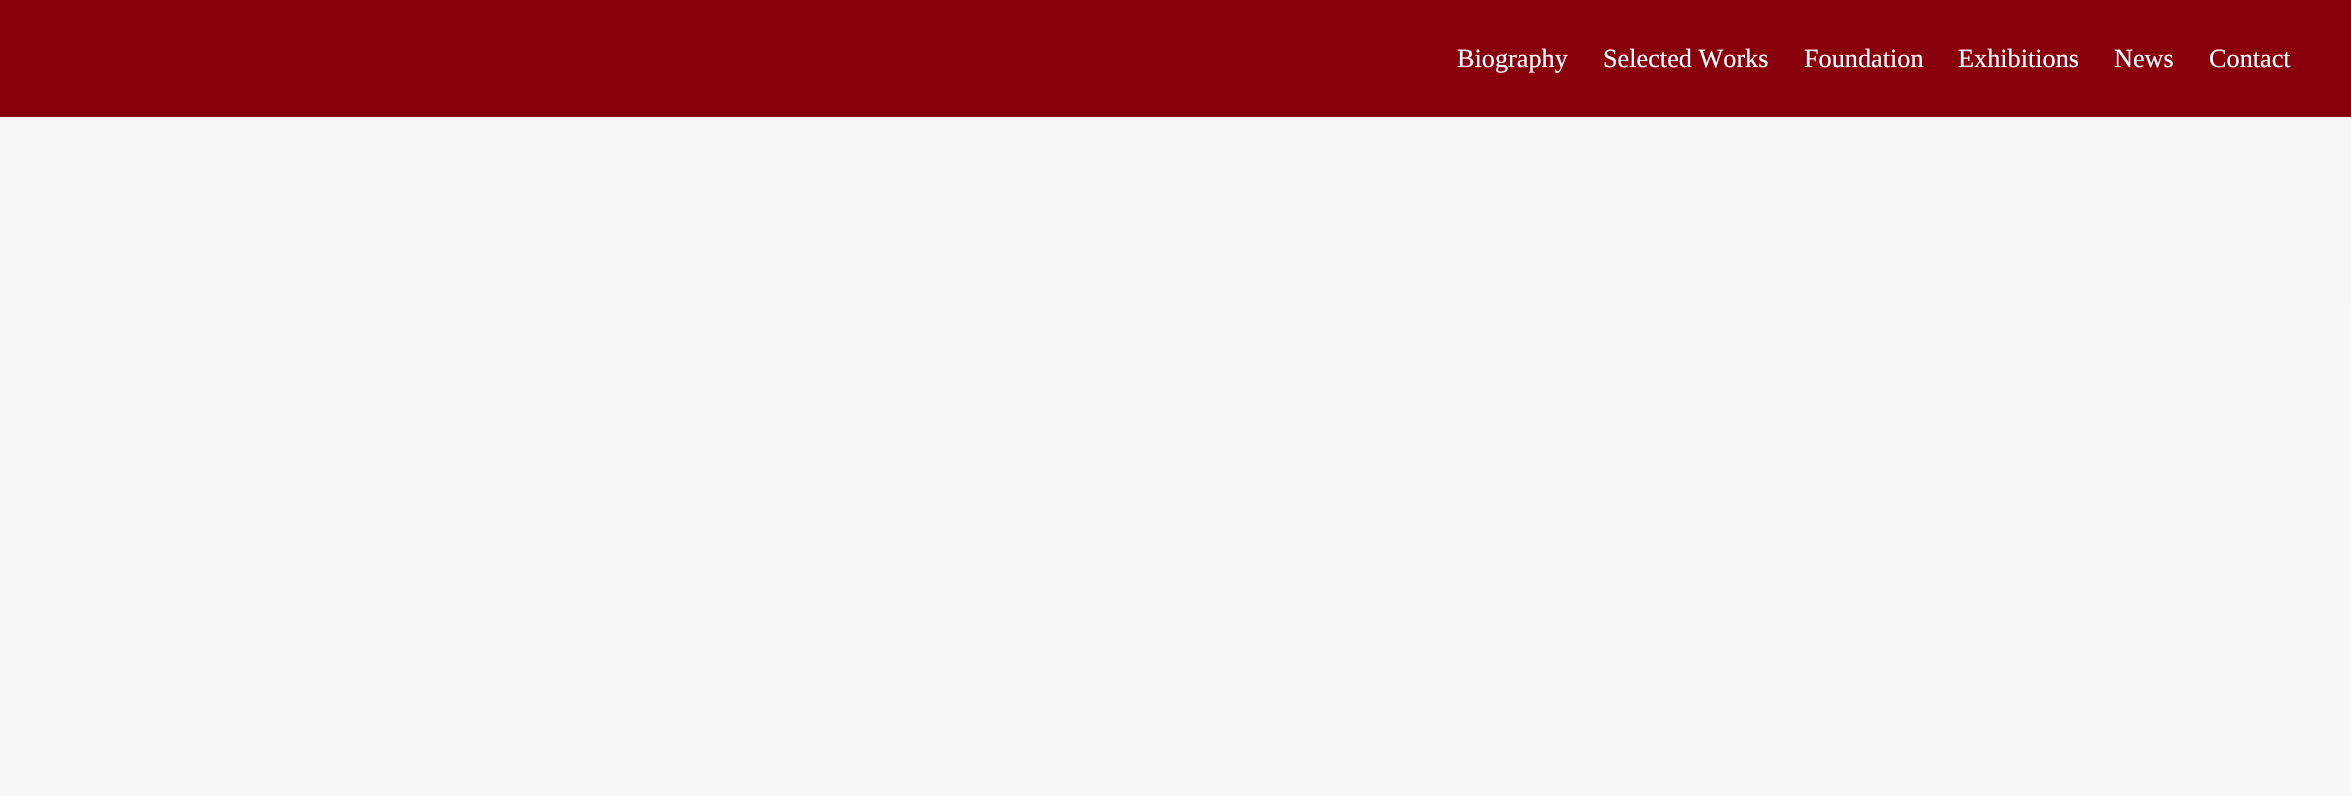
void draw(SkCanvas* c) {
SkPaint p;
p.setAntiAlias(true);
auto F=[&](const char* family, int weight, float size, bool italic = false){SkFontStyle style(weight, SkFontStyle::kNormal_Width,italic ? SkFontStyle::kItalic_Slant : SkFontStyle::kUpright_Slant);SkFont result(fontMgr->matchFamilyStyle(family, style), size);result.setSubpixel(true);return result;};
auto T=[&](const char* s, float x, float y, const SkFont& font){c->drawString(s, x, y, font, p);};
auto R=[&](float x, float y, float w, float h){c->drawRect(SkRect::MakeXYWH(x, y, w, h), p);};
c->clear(0xffffffff);
p.setColor(0xff89000d);
R(0,0,2351,117);
auto f1 = F("Liberation Serif",400,26.25);
p.setColor(0xffffffff);
T("Biography",1457,67,f1);
T("Selected Works",1603,67,f1);
T("Foundation",1804,67,f1);
T("Exhibitions",1958,67,f1);
T("News",2114,67,f1);
T("Contact",2209,67,f1);
{
const SkColor colors[] = {0xfff7f7f7,0xfffcfcfc};
const float stops[] = {0,1};
const SkPoint ends[] = {{1176,0}, {1176,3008}};
p.setShader(SkGradientShader::MakeLinear(ends, colors, stops, 2, SkTileMode::kClamp));
p.setAlpha(255);
}
R(0,117,2351,679);
}
